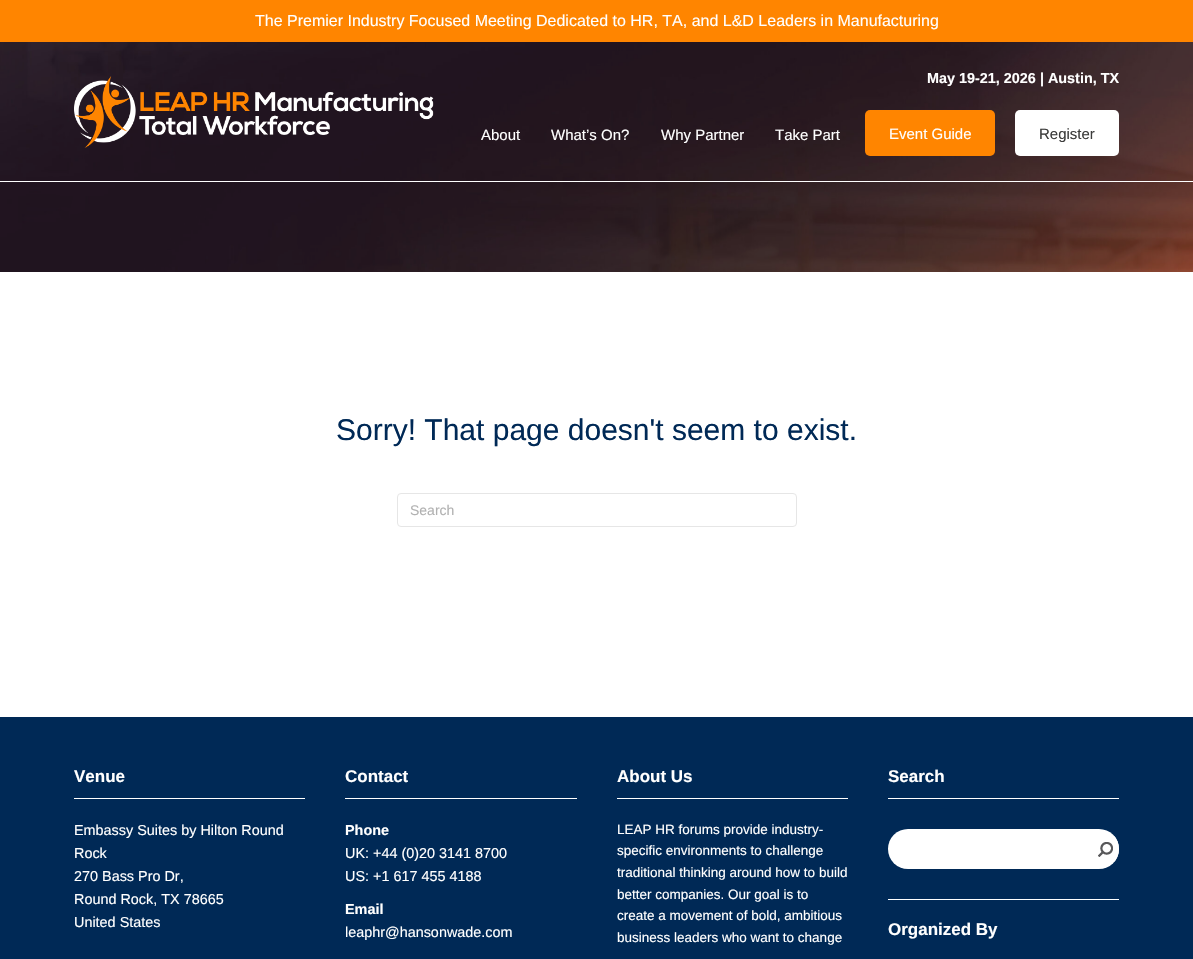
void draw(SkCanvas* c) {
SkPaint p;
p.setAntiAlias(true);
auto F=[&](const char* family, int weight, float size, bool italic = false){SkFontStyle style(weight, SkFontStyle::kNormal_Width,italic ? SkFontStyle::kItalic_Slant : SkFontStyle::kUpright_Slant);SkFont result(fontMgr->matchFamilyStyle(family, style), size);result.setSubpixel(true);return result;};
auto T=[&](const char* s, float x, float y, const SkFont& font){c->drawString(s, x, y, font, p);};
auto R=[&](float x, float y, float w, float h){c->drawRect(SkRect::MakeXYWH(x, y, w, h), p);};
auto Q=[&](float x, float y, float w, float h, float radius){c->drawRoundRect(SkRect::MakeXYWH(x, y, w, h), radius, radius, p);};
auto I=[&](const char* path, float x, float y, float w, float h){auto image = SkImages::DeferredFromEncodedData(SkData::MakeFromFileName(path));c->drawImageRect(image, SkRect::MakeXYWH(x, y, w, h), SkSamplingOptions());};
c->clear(0xffffffff);
p.setColor(0xffff8500);
R(0,0,1193,42);
auto f1 = F("Liberation Sans",400,16);
p.setColor(0xffffffff);
T("The Premier Industry Focused Meeting Dedicated to HR, TA, and L&D Leaders in Manufacturing",255,26,f1);
I("1.png",0,42,1193,230);
R(0,181,1193,1);
I("2.png",74,76,360,72);
auto f2 = F("Liberation Sans",700,14.4);
T("May 19-21, 2026 | Austin, TX",927,83,f2);
auto f3 = F("Liberation Sans",400,15);
T("About",481,140,f3);
T("What’s On?",551,140,f3);
T("Why Partner",661,140,f3);
T("Take Part",775,140,f3);
p.setColor(0xffff8500);
Q(865,110,130,46,5);
p.setColor(0xffffffff);
T("Event Guide",889,139,f3);
Q(1015,110,104,46,5);
p.setColor(0xff3c3c3b);
T("Register",1039,139,f3);
auto f4 = F("Liberation Sans",400,30);
p.setColor(0xff002956);
T("Sorry! That page doesn't seem to exist.",336,440,f4);
p.setStroke(true);
p.setStrokeWidth(1);
p.setColor(0xffe6e6e6);
c->drawRoundRect(SkRect::MakeXYWH(397.5,493.5,399,33),3.5,3.5,p);
auto f5 = F("Liberation Sans",400,14);
p.setStroke(false);
p.setColor(0xffb1b1b1);
T("Search",410,515,f5);
p.setColor(0xff002956);
R(0,717,1193,242);
auto f6 = F("Liberation Sans",700,17);
p.setColor(0xffffffff);
T("Venue",74,782,f6);
R(74,798,231,1);
auto f7 = F("Liberation Sans",400,14.4);
T("Embassy Suites by Hilton Round",74,835,f7);
T("Rock",74,858,f7);
T("270 Bass Pro Dr,",74,881,f7);
T("Round Rock, TX 78665",74,904,f7);
T("United States",74,927,f7);
T("Contact",345,782,f6);
R(345,798,232,1);
T("Phone",345,835,f2);
T("UK: +44 (0)20 3141 8700",345,858,f7);
T("US: +1 617 455 4188",345,881,f7);
T("Email",345,914,f2);
T("leaphr@hansonwade.com",345,937,f7);
T("About Us",617,782,f6);
R(617,798,231,1);
auto f8 = F("Liberation Sans",400,13.5);
T("LEAP HR forums provide industry-",617,834,f8);
T("specific environments to challenge",617,855,f8);
T("traditional thinking around how to build",617,877,f8);
T("better companies. Our goal is to",617,899,f8);
T("create a movement of bold, ambitious",617,920,f8);
T("business leaders who want to change",617,942,f8);
T("Search",888,782,f6);
R(888,798,231,1);
Q(888,829,231,40,20);
I("3.png",1098,836,21,26);
R(888,899,231,1);
T("Organized By",888,935,f6);
}
